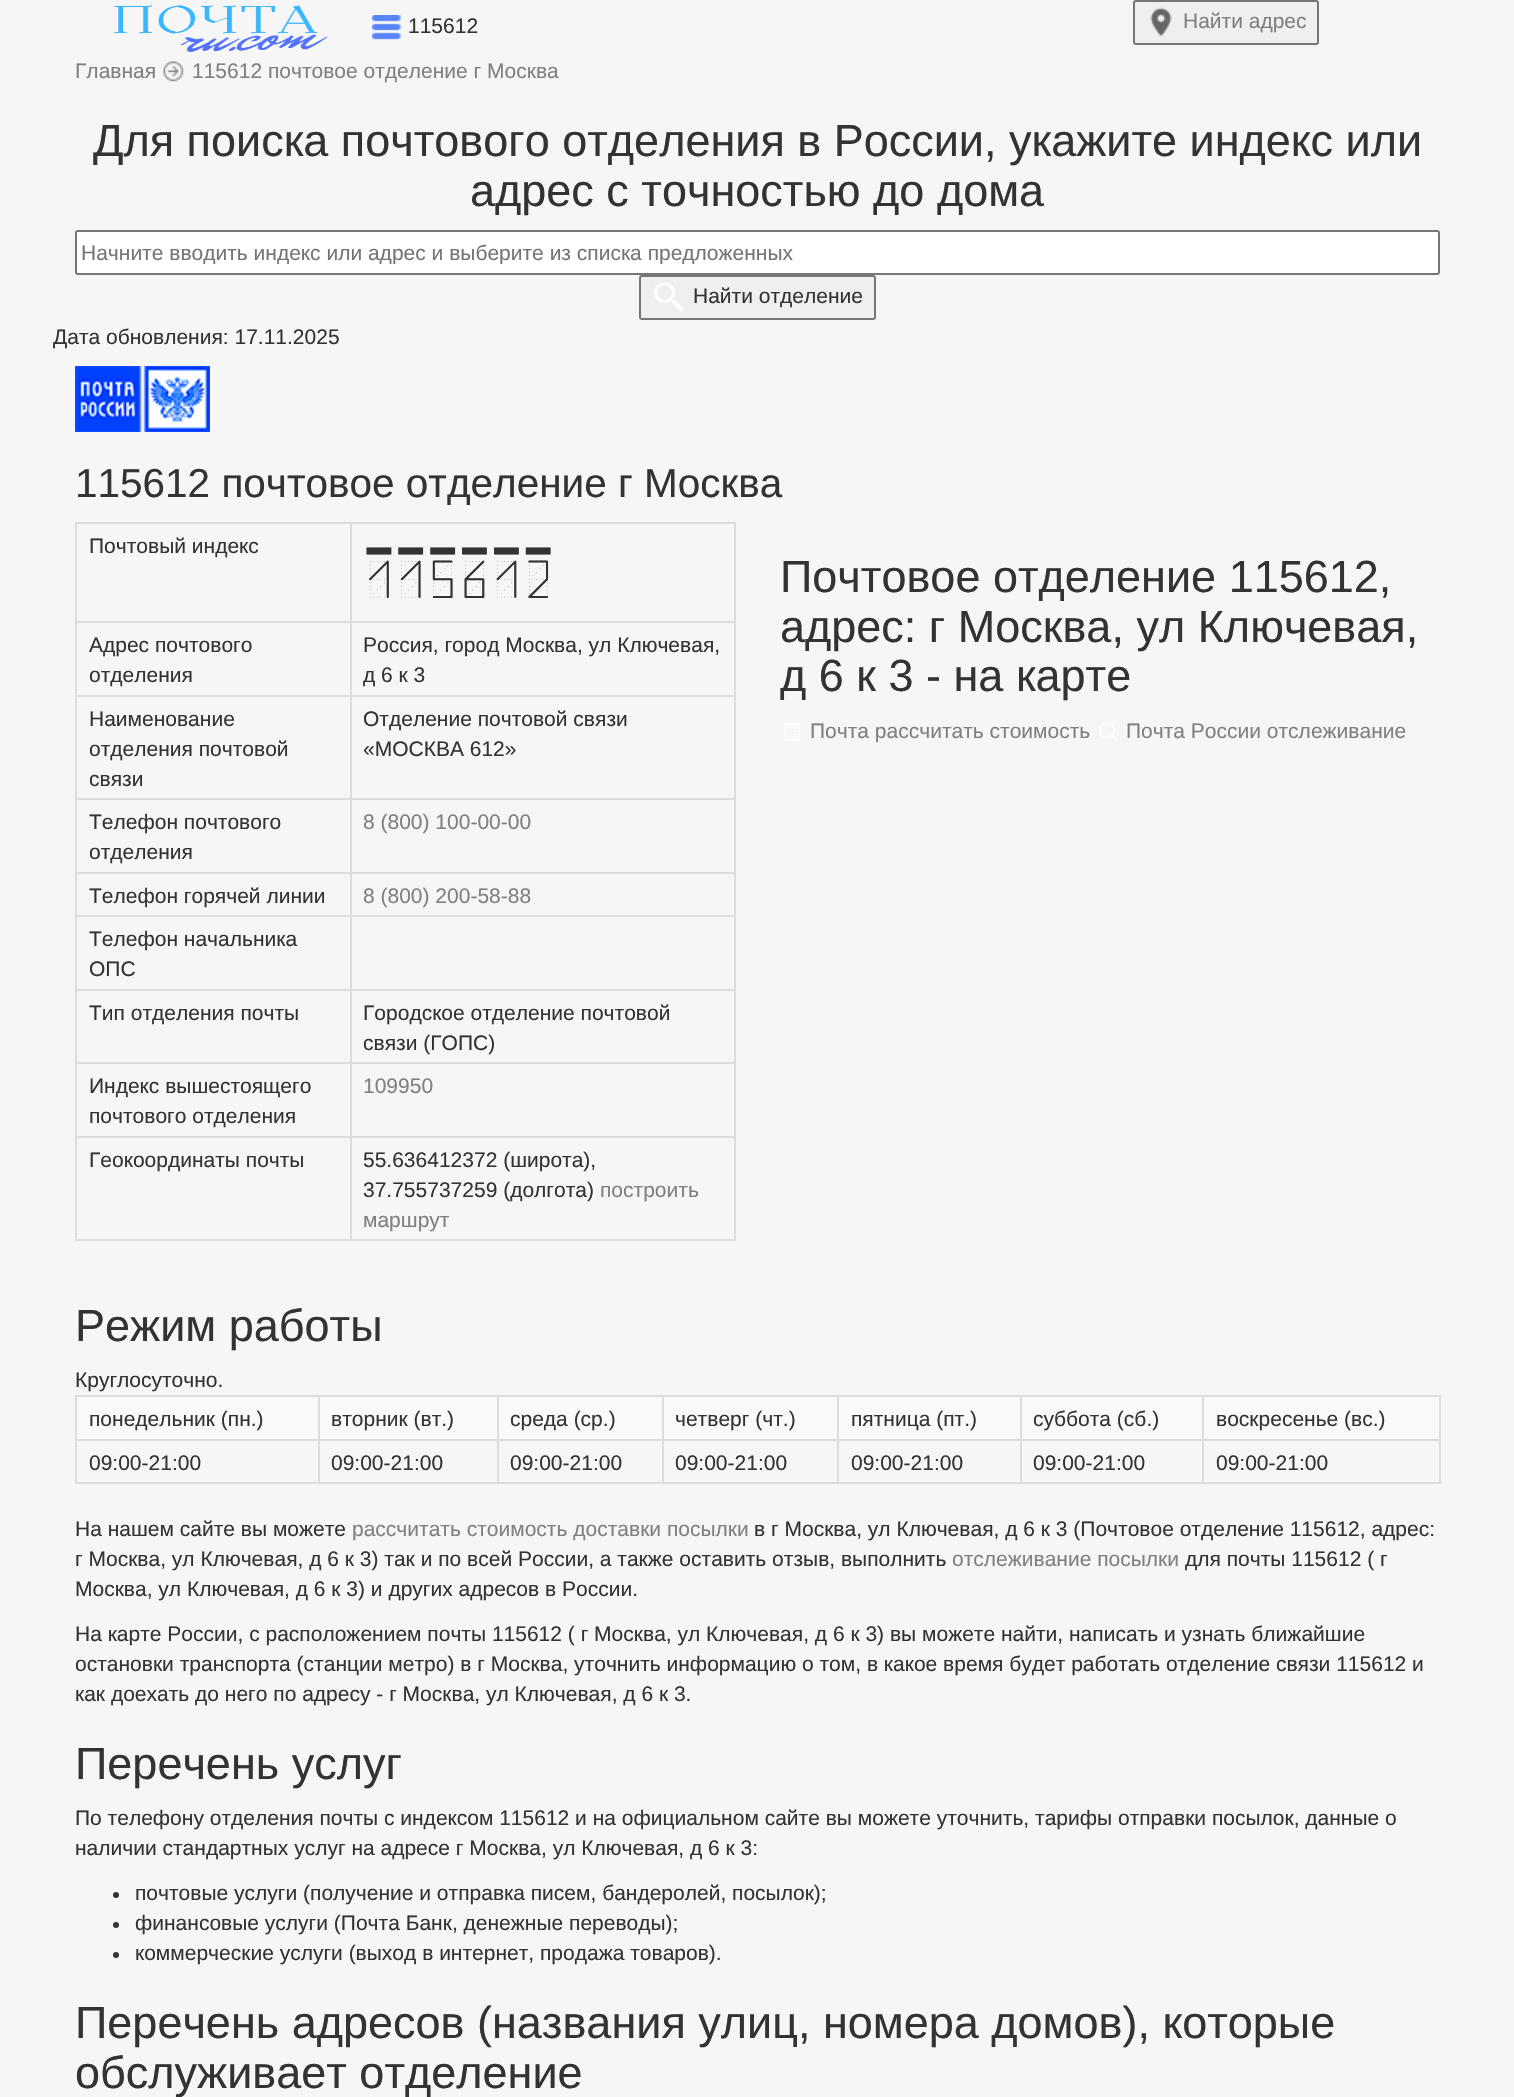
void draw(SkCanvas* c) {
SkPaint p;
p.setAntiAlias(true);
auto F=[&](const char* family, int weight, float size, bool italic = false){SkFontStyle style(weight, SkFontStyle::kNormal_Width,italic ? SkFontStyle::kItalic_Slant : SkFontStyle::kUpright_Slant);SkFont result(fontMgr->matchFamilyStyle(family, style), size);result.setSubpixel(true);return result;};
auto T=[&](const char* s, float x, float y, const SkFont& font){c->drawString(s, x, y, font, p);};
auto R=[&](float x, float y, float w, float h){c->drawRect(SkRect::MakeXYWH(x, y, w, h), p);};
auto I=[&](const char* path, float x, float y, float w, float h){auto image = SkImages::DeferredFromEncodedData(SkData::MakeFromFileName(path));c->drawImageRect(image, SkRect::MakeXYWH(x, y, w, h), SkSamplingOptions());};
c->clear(0xfff6f6f6);
I("1.png",114,5,214,47);
I("2.png",372,15,29,25);
auto f1 = F("Liberation Sans",400,21);
p.setColor(0xff333333);
T("115612",408,33,f1);
p.setColor(0xffefefef);
c->drawRoundRect(SkRect::MakeXYWH(1134,1,184,43),2,2,p);
p.setStroke(true);
p.setStrokeWidth(2);
p.setColor(0xff767676);
c->drawRoundRect(SkRect::MakeXYWH(1134,1,184,43),2,2,p);
I("3.png",1150,7,22,30);
p.setStroke(false);
p.setColor(0xff808080);
T("Найти адрес",1183,28,f1);
T("Главная",75,78,f1);
I("4.png",163,61,21,21);
T("115612 почтовое отделение г Москва",192,78,f1);
auto f2 = F("Liberation Sans",400,45);
p.setColor(0xff333333);
T("Для поиска почтового отделения в России, укажите индекс или",93,156,f2);
T("адрес с точностью до дома",470,206,f2);
p.setColor(0xffffffff);
c->drawRoundRect(SkRect::MakeXYWH(76,231,1363,43),2,2,p);
p.setStroke(true);
p.setColor(0xff767676);
c->drawRoundRect(SkRect::MakeXYWH(76,231,1363,43),2,2,p);
c->save();
c->clipRect(SkRect::MakeXYWH(81,240,1353,24));
p.setStroke(false);
p.setColor(0xff757575);
T("Начните вводить индекс или адрес и выберите из списка предложенных",81,260,f1);
c->restore();
p.setColor(0xffefefef);
c->drawRoundRect(SkRect::MakeXYWH(640,276,235,43),2,2,p);
p.setStroke(true);
p.setColor(0xff767676);
c->drawRoundRect(SkRect::MakeXYWH(640,276,235,43),2,2,p);
I("5.png",654,282,30,30);
p.setStroke(false);
p.setColor(0xff333333);
T("Найти отделение",693,303,f1);
T("Дата обновления: 17.11.2025",53,344,f1);
I("6.png",75,366,135,66);
auto f3 = F("Liberation Sans",400,40.5);
T("115612 почтовое отделение г Москва",75,497,f3);
p.setColor(0xffdddddd);
R(75,522,660,2);
R(734,522,2,719);
R(75,1239,660,2);
R(75,522,2,719);
p.setColor(0xff333333);
T("Почтовый индекс",89,553,f1);
p.setColor(0xffdddddd);
R(350,621,385,2);
R(350,695,385,2);
R(350,798,385,2);
R(350,872,385,2);
R(350,915,385,2);
R(350,989,385,2);
R(350,1062,385,2);
R(350,1136,385,2);
R(350,1136,2,105);
R(75,1136,276,2);
R(350,1062,2,75);
R(75,1062,276,2);
R(350,989,2,75);
R(75,989,276,2);
R(350,915,2,75);
R(75,915,276,2);
R(350,872,2,45);
R(75,872,276,2);
R(350,798,2,75);
R(75,798,276,2);
R(350,695,2,105);
R(75,695,276,2);
R(350,621,2,75);
R(75,621,276,2);
R(350,522,2,101);
auto f4 = F("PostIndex",400,60);
p.setColor(0xff333333);
T("115612",363,597,f4);
T("Адрес почтового",89,652,f1);
T("отделения",89,682,f1);
T("Россия, город Москва, ул Ключевая,",363,652,f1);
T("д 6 к 3",363,682,f1);
T("Наименование",89,726,f1);
T("отделения почтовой",89,756,f1);
T("связи",89,786,f1);
T("Отделение почтовой связи",363,726,f1);
T("«МОСКВА 612»",363,756,f1);
T("Телефон почтового",89,829,f1);
T("отделения",89,859,f1);
p.setColor(0xff808080);
T("8 (800) 100-00-00",363,829,f1);
p.setColor(0xff333333);
T("Телефон горячей линии",89,903,f1);
p.setColor(0xff808080);
T("8 (800) 200-58-88",363,903,f1);
p.setColor(0xff333333);
T("Телефон начальника",89,946,f1);
T("ОПС",89,976,f1);
T("Тип отделения почты",89,1020,f1);
T("Городское отделение почтовой",363,1020,f1);
T("связи (ГОПС)",363,1050,f1);
T("Индекс вышестоящего",89,1093,f1);
T("почтового отделения",89,1123,f1);
p.setColor(0xff808080);
T("109950",363,1093,f1);
p.setColor(0xff333333);
T("Геокоординаты почты",89,1167,f1);
T("55.636412372 (широта),",363,1167,f1);
T("37.755737259 (долгота)",363,1197,f1);
p.setColor(0xff808080);
T("построить",600,1197,f1);
T("маршрут",363,1227,f1);
p.setColor(0xff333333);
T("Почтовое отделение 115612,",780,592,f2);
T("адрес: г Москва, ул Ключевая,",780,642,f2);
T("д 6 к 3 - на карте",780,691,f2);
I("7.png",784,723,16,18);
p.setColor(0xff808080);
T("Почта рассчитать стоимость",810,738,f1);
I("8.png",1099,723,19,18);
T("Почта России отслеживание",1126,738,f1);
p.setColor(0xff333333);
T("Режим работы",75,1341,f2);
T("Круглосуточно.",75,1387,f1);
p.setColor(0xffdddddd);
R(75,1395,1365,2);
R(1439,1395,2,89);
R(75,1482,1365,2);
R(75,1395,2,89);
p.setColor(0xfff9f9f9);
R(77,1397,1362,42);
p.setColor(0xff333333);
T("понедельник (пн.)",89,1426,f1);
p.setColor(0xffdddddd);
R(1202,1439,238,2);
R(1202,1439,2,45);
R(1020,1439,183,2);
R(1020,1439,2,45);
R(837,1439,185,2);
R(837,1439,2,45);
R(662,1439,177,2);
R(662,1439,2,45);
R(497,1439,166,2);
R(497,1439,2,45);
R(318,1439,180,2);
R(318,1439,2,45);
R(75,1439,245,2);
R(318,1395,2,45);
p.setColor(0xff333333);
T("вторник (вт.)",331,1426,f1);
p.setColor(0xffdddddd);
R(497,1395,2,45);
p.setColor(0xff333333);
T("среда (ср.)",510,1426,f1);
p.setColor(0xffdddddd);
R(662,1395,2,45);
p.setColor(0xff333333);
T("четверг (чт.)",675,1426,f1);
p.setColor(0xffdddddd);
R(837,1395,2,45);
p.setColor(0xff333333);
T("пятница (пт.)",851,1426,f1);
p.setColor(0xffdddddd);
R(1020,1395,2,45);
p.setColor(0xff333333);
T("суббота (сб.)",1033,1426,f1);
p.setColor(0xffdddddd);
R(1202,1395,2,45);
p.setColor(0xff333333);
T("воскресенье (вс.)",1216,1426,f1);
T("09:00-21:00",89,1470,f1);
T("09:00-21:00",331,1470,f1);
T("09:00-21:00",510,1470,f1);
T("09:00-21:00",675,1470,f1);
T("09:00-21:00",851,1470,f1);
T("09:00-21:00",1033,1470,f1);
T("09:00-21:00",1216,1470,f1);
T("На нашем сайте вы можете",75,1536,f1);
p.setColor(0xff808080);
T("рассчитать стоимость доставки посылки",352,1536,f1);
p.setColor(0xff333333);
T("в г Москва, ул Ключевая, д 6 к 3 (Почтовое отделение 115612, адрес:",754,1536,f1);
T("г Москва, ул Ключевая, д 6 к 3) так и по всей России, а также оставить отзыв, выполнить",75,1566,f1);
p.setColor(0xff808080);
T("отслеживание посылки",952,1566,f1);
p.setColor(0xff333333);
T("для почты 115612 ( г",1185,1566,f1);
T("Москва, ул Ключевая, д 6 к 3) и других адресов в России.",75,1596,f1);
T("На карте России, с расположением почты 115612 ( г Москва, ул Ключевая, д 6 к 3) вы можете найти, написать и узнать ближайшие",75,1641,f1);
T("остановки транспорта (станции метро) в г Москва, уточнить информацию о том, в какое время будет работать отделение связи 115612 и",75,1671,f1);
T("как доехать до него по адресу - г Москва, ул Ключевая, д 6 к 3.",75,1701,f1);
T("Перечень услуг",75,1779,f2);
T("По телефону отделения почты с индексом 115612 и на официальном сайте вы можете уточнить, тарифы отправки посылок, данные о",75,1825,f1);
T("наличии стандартных услуг на адресе г Москва, ул Ключевая, д 6 к 3:",75,1855,f1);
c->drawCircle(116,1895,3,p);
T("почтовые услуги (получение и отправка писем, бандеролей, посылок);",135,1900,f1);
c->drawCircle(116,1925,3,p);
T("финансовые услуги (Почта Банк, денежные переводы);",135,1930,f1);
c->drawCircle(116,1955,3,p);
T("коммерческие услуги (выход в интернет, продажа товаров).",135,1960,f1);
T("Перечень адресов (названия улиц, номера домов), которые",75,2038,f2);
T("обслуживает отделение",75,2088,f2);
}
